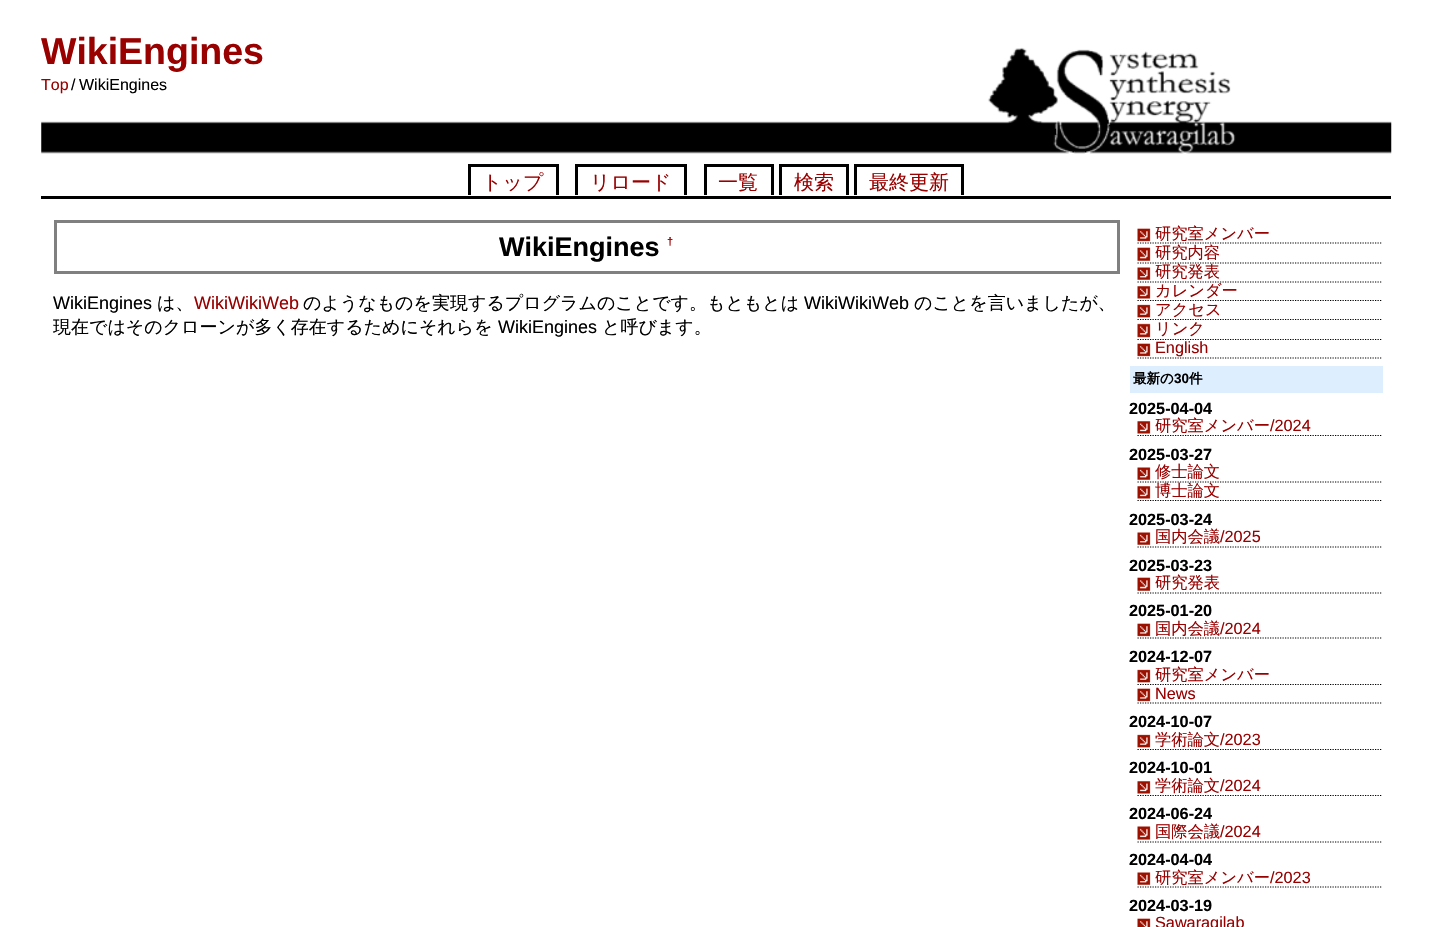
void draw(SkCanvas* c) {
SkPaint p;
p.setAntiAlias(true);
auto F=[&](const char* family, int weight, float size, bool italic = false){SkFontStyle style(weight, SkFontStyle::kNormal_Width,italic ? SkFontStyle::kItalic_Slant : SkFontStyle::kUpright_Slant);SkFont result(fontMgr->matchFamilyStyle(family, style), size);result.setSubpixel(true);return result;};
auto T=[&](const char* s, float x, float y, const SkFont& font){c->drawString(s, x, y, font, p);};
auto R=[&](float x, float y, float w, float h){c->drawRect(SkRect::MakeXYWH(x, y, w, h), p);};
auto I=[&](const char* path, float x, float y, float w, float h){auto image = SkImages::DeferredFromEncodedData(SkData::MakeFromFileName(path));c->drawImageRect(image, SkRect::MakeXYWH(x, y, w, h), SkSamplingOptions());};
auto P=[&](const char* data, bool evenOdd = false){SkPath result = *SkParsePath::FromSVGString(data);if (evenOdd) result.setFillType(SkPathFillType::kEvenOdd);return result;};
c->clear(0xffffffff);
I("1.png",41,47,1351,107);
auto f1 = F("Liberation Sans",700,37.5);
p.setColor(0xff990000);
T("WikiEngines",41,64,f1);
auto f2 = F("Liberation Sans",400,16);
T("Top",41,90,f2);
p.setColor(0xff000000);
T("/",71,90,f2);
T("WikiEngines",79,90,f2);
R(41,196,1350,3);
auto f3 = F("WenQuanYi Zen Hei",500,20);
p.setColor(0xff990000);
T("トップ",482,189,f3);
p.setColor(0xff000000);
R(468,164,91,3);
R(556,164,3,31);
R(468,164,3,31);
p.setColor(0xff990000);
T("リロード",590,189,f3);
p.setColor(0xff000000);
R(575,164,111,3);
R(684,164,3,31);
R(575,164,3,31);
p.setColor(0xff990000);
T("一覧",718,189,f3);
p.setColor(0xff000000);
R(704,164,70,3);
R(771,164,3,31);
R(704,164,3,31);
p.setColor(0xff990000);
T("検索",794,189,f3);
p.setColor(0xff000000);
R(779,164,70,3);
R(846,164,3,31);
R(779,164,3,31);
p.setColor(0xff990000);
T("最終更新",869,189,f3);
p.setColor(0xff000000);
R(854,164,110,3);
R(961,164,3,31);
R(854,164,3,31);
p.setStroke(true);
p.setStrokeWidth(3);
p.setColor(0xff808080);
c->drawRect(SkRect::MakeXYWH(55.5,221.5,1063,51),p);
auto f4 = F("Liberation Sans",700,27);
p.setStroke(false);
p.setColor(0xff000000);
T("WikiEngines",499,256,f4);
auto f5 = F("Liberation Sans",700,11);
p.setColor(0xff990000);
T("†",667,245,f5);
auto f6 = F("Liberation Sans",400,18);
p.setColor(0xff000000);
T("WikiEngines",53,309,f6);
auto f7 = F("WenQuanYi Zen Hei",500,18);
T("は、",157,309,f7);
p.setColor(0xff990000);
T("WikiWikiWeb",194,309,f6);
p.setColor(0xff000000);
T("のようなものを実現するプログラムのことです。もともとは",303,309,f7);
T("WikiWikiWeb",804,309,f6);
T("のことを言いましたが、",914,309,f7);
T("現在ではそのクローンが多く存在するためにそれらを",53,333,f7);
T("WikiEngines",498,333,f6);
T("と呼びます。",602,333,f7);
I("2.png",1137,228,14,14);
p.setStroke(true);
p.setStrokeWidth(1.2);
p.setPathEffect(SkDashPathEffect::Make({{1.25f,1.25f}}, 0));
c->drawPath(P("M1137.5 243h245"),p);
p.setPathEffect(nullptr);
auto f8 = F("WenQuanYi Zen Hei",500,16.25);
p.setStroke(false);
p.setColor(0xff990000);
T("研究室メンバー",1155,239,f8);
I("3.png",1137,247,14,14);
p.setStroke(true);
p.setColor(0xff000000);
p.setPathEffect(SkDashPathEffect::Make({{1.25f,1.25f}}, 0));
c->drawPath(P("M1137.5 263h245"),p);
p.setPathEffect(nullptr);
p.setStroke(false);
p.setColor(0xff990000);
T("研究内容",1155,258,f8);
I("4.png",1137,267,14,13);
p.setStroke(true);
p.setColor(0xff000000);
p.setPathEffect(SkDashPathEffect::Make({{1.25f,1.25f}}, 0));
c->drawPath(P("M1137.5 282h245"),p);
p.setPathEffect(nullptr);
p.setStroke(false);
p.setColor(0xff990000);
T("研究発表",1155,277,f8);
I("5.png",1137,286,14,13);
p.setStroke(true);
p.setColor(0xff000000);
p.setPathEffect(SkDashPathEffect::Make({{1.25f,1.25f}}, 0));
c->drawPath(P("M1137.5 300.5h245"),p);
p.setPathEffect(nullptr);
p.setStroke(false);
p.setColor(0xff990000);
T("カレンダー",1155,296,f8);
I("6.png",1137,304,14,14);
p.setStroke(true);
p.setColor(0xff000000);
p.setPathEffect(SkDashPathEffect::Make({{1.25f,1.25f}}, 0));
c->drawPath(P("M1137.5 319.5h245"),p);
p.setPathEffect(nullptr);
p.setStroke(false);
p.setColor(0xff990000);
T("アクセス",1155,315,f8);
I("7.png",1137,323,14,15);
p.setStroke(true);
p.setColor(0xff000000);
p.setPathEffect(SkDashPathEffect::Make({{1.25f,1.25f}}, 0));
c->drawPath(P("M1137.5 339.5h245"),p);
p.setPathEffect(nullptr);
p.setStroke(false);
p.setColor(0xff990000);
T("リンク",1155,334,f8);
I("2.png",1137,343,14,14);
p.setStroke(true);
p.setColor(0xff000000);
p.setPathEffect(SkDashPathEffect::Make({{1.25f,1.25f}}, 0));
c->drawPath(P("M1137.5 358h245"),p);
p.setPathEffect(nullptr);
auto f9 = F("Liberation Sans",400,16.25);
p.setStroke(false);
p.setColor(0xff990000);
T("English",1155,353,f9);
p.setColor(0xffddeeff);
R(1130,366,253,27);
auto f10 = F("WenQuanYi Zen Hei",700,13.5);
p.setColor(0xff000000);
T("最新の",1133,383,f10);
auto f11 = F("Liberation Sans",700,13.5);
T("30",1174,383,f11);
T("件",1189,383,f10);
auto f12 = F("Liberation Sans",700,16.25);
T("2025-04-04",1129,414,f12);
I("5.png",1137,421,14,13);
p.setStroke(true);
p.setPathEffect(SkDashPathEffect::Make({{1.25f,1.25f}}, 0));
c->drawPath(P("M1137.5 435.5h245"),p);
p.setPathEffect(nullptr);
p.setStroke(false);
p.setColor(0xff990000);
T("研究室メンバー",1155,431,f8);
T("/2024",1270,431,f9);
p.setColor(0xff000000);
T("2025-03-27",1129,460,f12);
I("4.png",1137,467,14,13);
p.setStroke(true);
p.setPathEffect(SkDashPathEffect::Make({{1.25f,1.25f}}, 0));
c->drawPath(P("M1137.5 482h245"),p);
p.setPathEffect(nullptr);
p.setStroke(false);
p.setColor(0xff990000);
T("修士論文",1155,477,f8);
I("5.png",1137,486,14,13);
p.setStroke(true);
p.setColor(0xff000000);
p.setPathEffect(SkDashPathEffect::Make({{1.25f,1.25f}}, 0));
c->drawPath(P("M1137.5 500.5h245"),p);
p.setPathEffect(nullptr);
p.setStroke(false);
p.setColor(0xff990000);
T("博士論文",1155,496,f8);
p.setColor(0xff000000);
T("2025-03-24",1129,525,f12);
I("4.png",1137,532,14,13);
p.setStroke(true);
p.setPathEffect(SkDashPathEffect::Make({{1.25f,1.25f}}, 0));
c->drawPath(P("M1137.5 547h245"),p);
p.setPathEffect(nullptr);
p.setStroke(false);
p.setColor(0xff990000);
T("国内会議",1155,542,f8);
T("/2025",1220,542,f9);
p.setColor(0xff000000);
T("2025-03-23",1129,571,f12);
I("3.png",1137,577,14,14);
p.setStroke(true);
p.setPathEffect(SkDashPathEffect::Make({{1.25f,1.25f}}, 0));
c->drawPath(P("M1137.5 593h245"),p);
p.setPathEffect(nullptr);
p.setStroke(false);
p.setColor(0xff990000);
T("研究発表",1155,588,f8);
p.setColor(0xff000000);
T("2025-01-20",1129,616,f12);
I("2.png",1137,623,14,14);
p.setStroke(true);
p.setPathEffect(SkDashPathEffect::Make({{1.25f,1.25f}}, 0));
c->drawPath(P("M1137.5 638h245"),p);
p.setPathEffect(nullptr);
p.setStroke(false);
p.setColor(0xff990000);
T("国内会議",1155,634,f8);
T("/2024",1220,634,f9);
p.setColor(0xff000000);
T("2024-12-07",1129,662,f12);
I("6.png",1137,669,14,14);
p.setStroke(true);
p.setPathEffect(SkDashPathEffect::Make({{1.25f,1.25f}}, 0));
c->drawPath(P("M1137.5 684.5h245"),p);
p.setPathEffect(nullptr);
p.setStroke(false);
p.setColor(0xff990000);
T("研究室メンバー",1155,680,f8);
I("2.png",1137,688,14,14);
p.setStroke(true);
p.setColor(0xff000000);
p.setPathEffect(SkDashPathEffect::Make({{1.25f,1.25f}}, 0));
c->drawPath(P("M1137.5 703h245"),p);
p.setPathEffect(nullptr);
p.setStroke(false);
p.setColor(0xff990000);
T("News",1155,699,f9);
p.setColor(0xff000000);
T("2024-10-07",1129,727,f12);
I("6.png",1137,734,14,14);
p.setStroke(true);
p.setPathEffect(SkDashPathEffect::Make({{1.25f,1.25f}}, 0));
c->drawPath(P("M1137.5 749.5h245"),p);
p.setPathEffect(nullptr);
p.setStroke(false);
p.setColor(0xff990000);
T("学術論文",1155,745,f8);
T("/2023",1220,745,f9);
p.setColor(0xff000000);
T("2024-10-01",1129,773,f12);
I("5.png",1137,781,14,13);
p.setStroke(true);
p.setPathEffect(SkDashPathEffect::Make({{1.25f,1.25f}}, 0));
c->drawPath(P("M1137.5 795.5h245"),p);
p.setPathEffect(nullptr);
p.setStroke(false);
p.setColor(0xff990000);
T("学術論文",1155,791,f8);
T("/2024",1220,791,f9);
p.setColor(0xff000000);
T("2024-06-24",1129,819,f12);
I("8.png",1137,826,14,14);
p.setStroke(true);
p.setPathEffect(SkDashPathEffect::Make({{1.25f,1.25f}}, 0));
c->drawPath(P("M1137.5 842h245"),p);
p.setPathEffect(nullptr);
p.setStroke(false);
p.setColor(0xff990000);
T("国際会議",1155,837,f8);
T("/2024",1220,837,f9);
p.setColor(0xff000000);
T("2024-04-04",1129,865,f12);
I("4.png",1137,872,14,13);
p.setStroke(true);
p.setPathEffect(SkDashPathEffect::Make({{1.25f,1.25f}}, 0));
c->drawPath(P("M1137.5 887h245"),p);
p.setPathEffect(nullptr);
p.setStroke(false);
p.setColor(0xff990000);
T("研究室メンバー",1155,883,f8);
T("/2023",1270,883,f9);
p.setColor(0xff000000);
T("2024-03-19",1129,911,f12);
I("9.png",1137,918,14,9);
p.setColor(0xff990000);
T("Sawaragilab",1155,928,f9);
}
